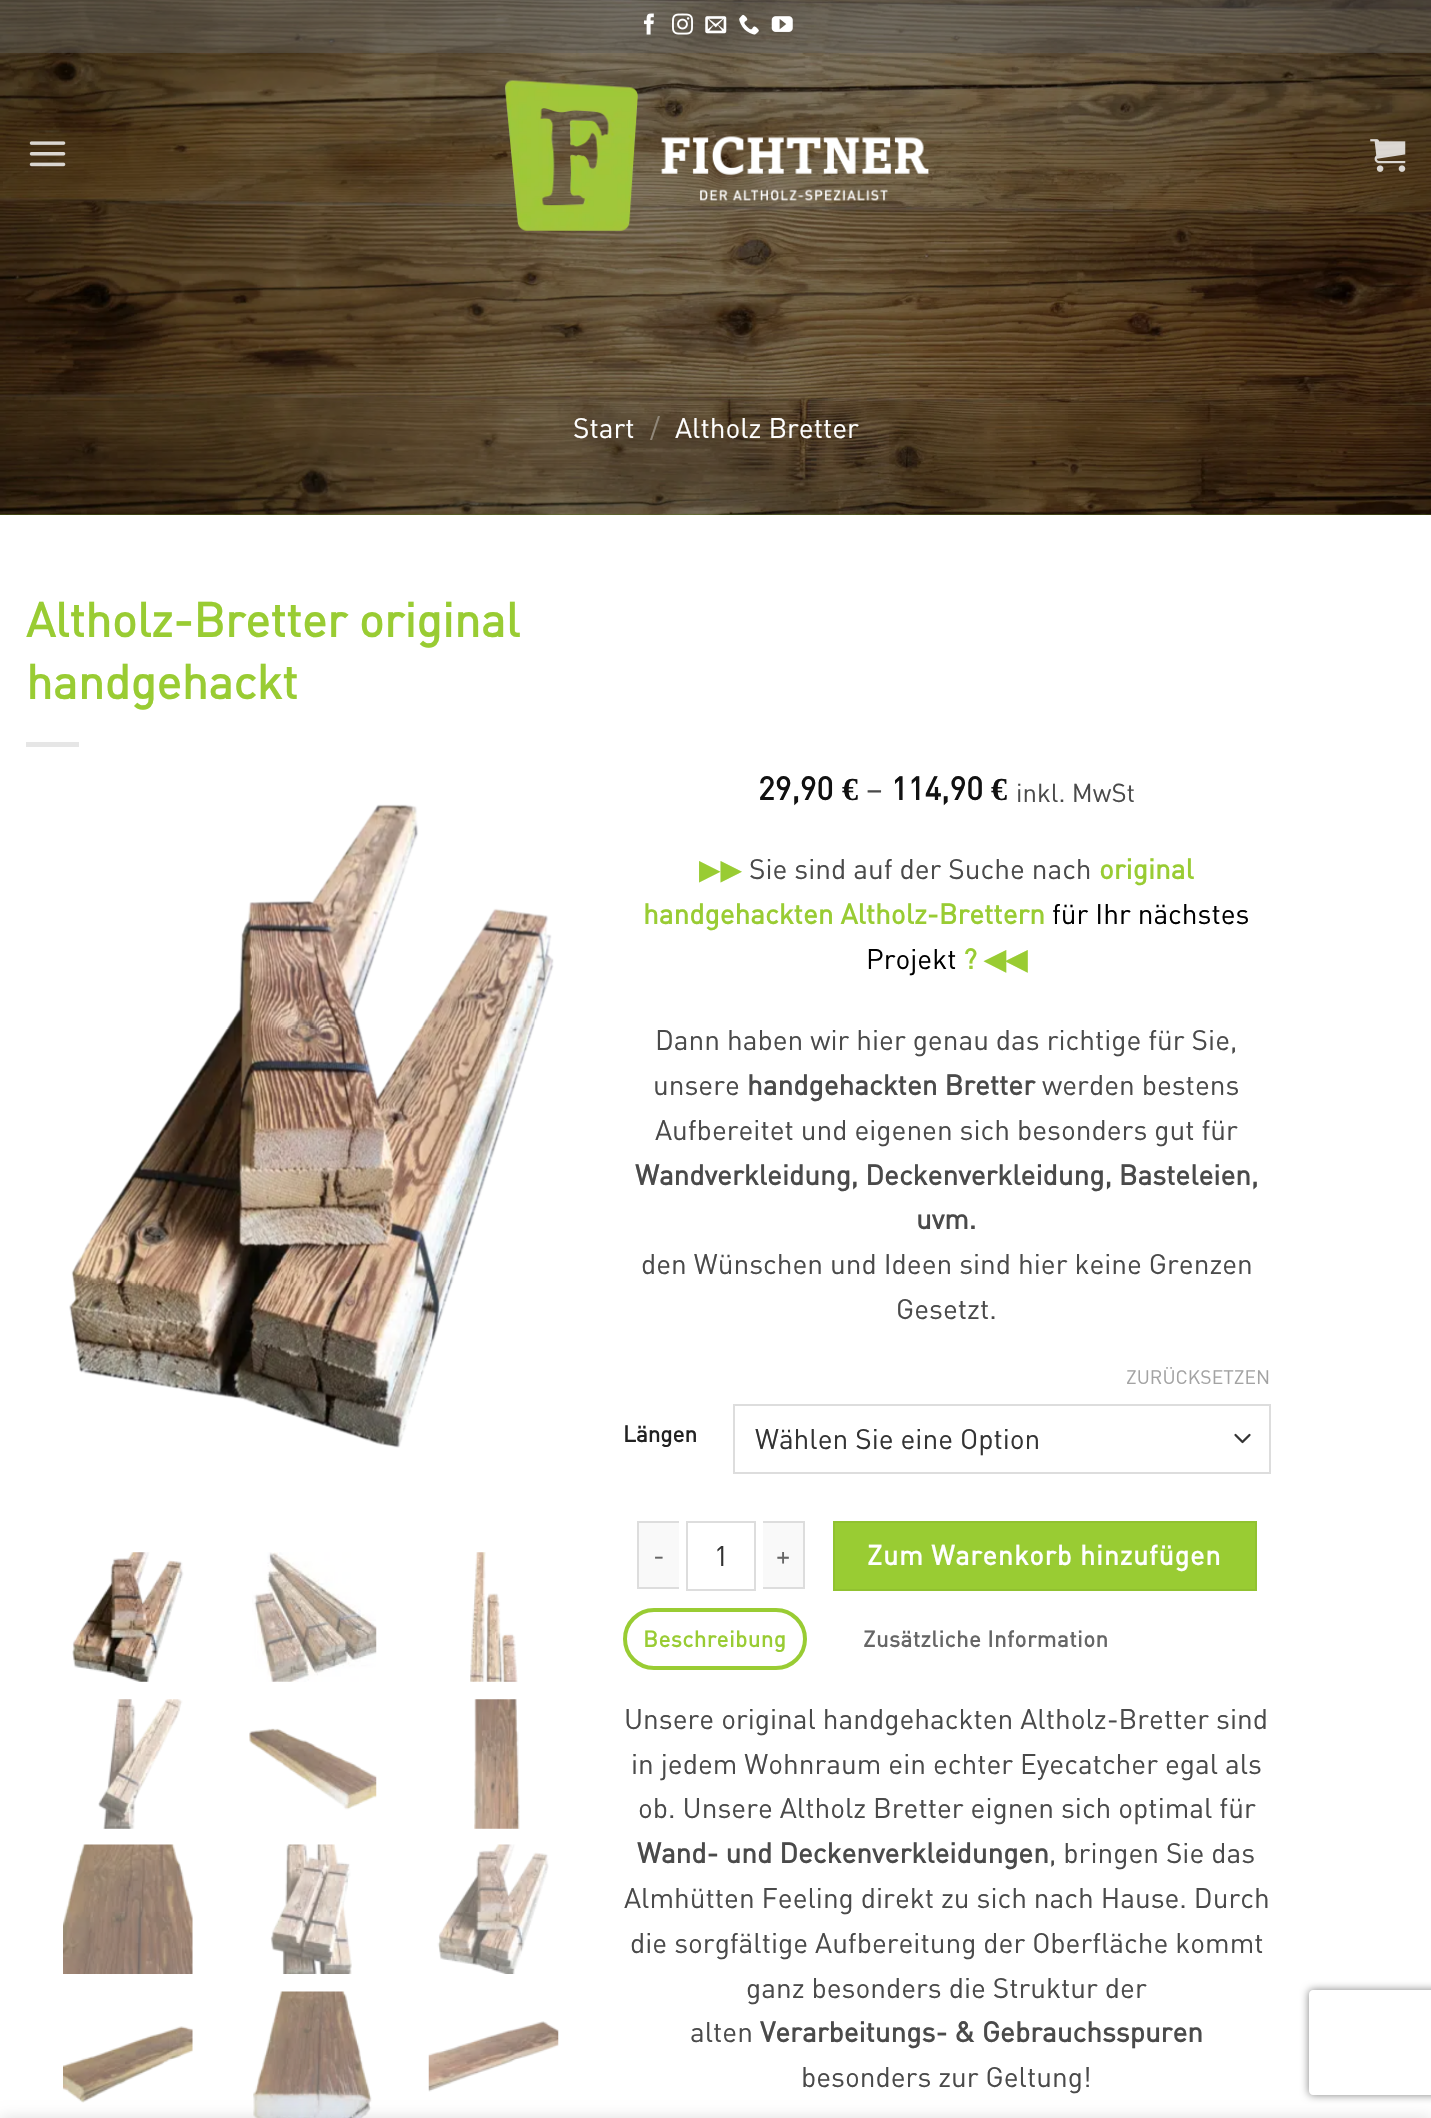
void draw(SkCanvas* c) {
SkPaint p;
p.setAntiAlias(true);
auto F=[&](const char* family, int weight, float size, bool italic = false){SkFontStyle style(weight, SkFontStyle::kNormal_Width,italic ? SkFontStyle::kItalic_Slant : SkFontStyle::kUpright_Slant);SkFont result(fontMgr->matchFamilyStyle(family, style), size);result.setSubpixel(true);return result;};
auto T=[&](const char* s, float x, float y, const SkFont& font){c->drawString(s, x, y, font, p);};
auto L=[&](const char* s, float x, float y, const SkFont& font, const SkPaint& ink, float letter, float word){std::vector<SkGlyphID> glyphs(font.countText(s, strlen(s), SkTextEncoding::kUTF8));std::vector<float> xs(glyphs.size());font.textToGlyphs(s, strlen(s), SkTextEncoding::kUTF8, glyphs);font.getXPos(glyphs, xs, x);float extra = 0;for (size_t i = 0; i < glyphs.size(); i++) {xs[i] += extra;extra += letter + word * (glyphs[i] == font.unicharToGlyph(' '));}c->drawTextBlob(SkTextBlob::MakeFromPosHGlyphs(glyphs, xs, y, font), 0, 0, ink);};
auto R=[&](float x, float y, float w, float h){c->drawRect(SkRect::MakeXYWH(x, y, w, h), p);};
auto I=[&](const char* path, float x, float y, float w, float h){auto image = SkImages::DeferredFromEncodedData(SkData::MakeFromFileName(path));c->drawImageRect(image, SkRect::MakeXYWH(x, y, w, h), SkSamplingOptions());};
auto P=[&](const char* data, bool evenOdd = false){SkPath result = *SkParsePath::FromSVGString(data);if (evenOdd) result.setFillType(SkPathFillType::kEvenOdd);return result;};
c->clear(0xffffffff);
p.setColor(0xff56721d);
R(0,514,1431,1);
I("9.png",0,0,1431,515);
p.setColor(0x6b5e5e5e);
R(0,0,1431,53);
I("1.png",644,13,10,22);
I("2.png",672,13,21,22);
I("3.png",705,16,22,18);
I("4.png",739,14,20,21);
I("5.png",771,16,22,16);
I("6.png",29,141,37,26);
I("7.png",505,80,424,151);
I("8.png",1370,139,36,33);
auto f1 = F("DIN",400,28);
p.setColor(0xffffffff);
T("Start",573,438,f1);
p.setColor(0xff91887a);
T("/",650,438,f1);
p.setColor(0xffffffff);
T("Altholz Bretter",675,438,f1);
auto f2 = F("DIN",700,47.6);
p.setColor(0xff99cc33);
T("Altholz-Bretter original",26,637,f2);
T("handgehackt",26,699,f2);
p.setColor(0xffe6e6e6);
R(26,742,53,5);
I("10.png",69,804,485,644);
I("11.png",72,1552,112,130);
I("12.png",252,1552,125,130);
I("13.png",470,1552,48,130);
I("14.png",98,1699,85,130);
I("15.png",249,1728,128,82);
I("16.png",474,1699,46,130);
I("17.png",63,1844,130,130);
I("18.png",270,1844,82,130);
I("19.png",437,1844,112,130);
I("20.png",63,2026,130,77);
I("21.png",253,1991,119,127);
I("22.png",428,2021,131,71);
auto f3 = F("DIN",700,32);
p.setColor(0xff111111);
T("29,90",758,800,f3);
auto f4 = F("Liberation Serif",700,32);
T("€",842,800,f4);
auto f5 = F("DIN",400,32);
p.setColor(0xff4a4a4a);
T("–",866,800,f5);
p.setColor(0xff111111);
T("114,90",891,800,f3);
T("€",991,800,f4);
auto f6 = F("DIN",400,25.75);
p.setColor(0xff4a4a4a);
T("inkl. MwSt",1016,802,f6);
auto f7 = F("DejaVu Sans",400,28);
p.setColor(0xff99cc33);
T("▶▶",699,879,f7);
p.setColor(0xff4a4a4a);
T("Sie sind auf der Suche nach",749,879,f1);
auto f8 = F("DIN",700,28);
p.setColor(0xff99cc33);
T("original",1099,879,f8);
T("handgehackten Altholz-Brettern",643,924,f8);
p.setColor(0xff000000);
T("für Ihr nächstes",1052,924,f1);
T("Projekt",866,969,f1);
p.setColor(0xff99cc33);
T("?",963,969,f8);
auto f9 = F("DejaVu Sans",700,28);
T("◀◀",984,969,f9);
p.setColor(0xff4a4a4a);
T("Dann haben wir hier genau das richtige für Sie,",655,1050,f1);
T("unsere",653,1095,f1);
T("handgehackten Bretter",747,1095,f8);
T("werden bestens",1042,1095,f1);
T("Aufbereitet und eigenen sich besonders gut für",655,1140,f1);
T("Wandverkleidung, Deckenverkleidung, Basteleien,",635,1185,f8);
T("uvm.",916,1229,f8);
T("den Wünschen und Ideen sind hier keine Grenzen",641,1274,f1);
T("Gesetzt.",896,1319,f1);
auto f10 = F("DIN",700,22.5);
p.setColor(0xff222222);
T("Längen",623,1442,f10);
auto f11 = F("DIN",400,19.25);
p.setColor(0xffa3a3a3);
T("ZURÜCKSETZEN",1126,1384,f11);
p.setStroke(true);
p.setStrokeWidth(2.3);
p.setStrokeCap(SkPaint::kRound_Cap);
p.setStrokeJoin(SkPaint::kRound_Join);
p.setColor(0xff333333);
c->drawPath(P("M1235.5 1435l7 7l7-7"),p);
p.setStrokeWidth(2);
p.setStrokeCap(SkPaint::kButt_Cap);
p.setStrokeJoin(SkPaint::kMiter_Join);
p.setColor(0xffdddddd);
c->drawRect(SkRect::MakeXYWH(734,1405,536,68),p);
p.setStroke(false);
p.setColor(0xff333333);
T("Wählen Sie eine Option",755,1449,f1);
p.setColor(0xfff9f9f9);
R(639,1523,40,64);
p.setColor(0xffdddddd);
R(637,1521,42,2);
R(637,1587,42,2);
R(637,1521,2,68);
auto f12 = F("DIN",400,27.2);
p.setColor(0xff666666);
L("-",653,1565,f12,p,.8,0);
p.setStroke(true);
p.setColor(0xffdddddd);
c->drawRect(SkRect::MakeXYWH(687,1522,68,68),p);
p.setStroke(false);
p.setColor(0xff333333);
T("1",714,1566,f1);
p.setColor(0xfff9f9f9);
R(763,1523,40,64);
p.setColor(0xffdddddd);
R(763,1521,42,2);
R(803,1521,2,68);
R(763,1587,42,2);
p.setColor(0xff666666);
L("+",776,1565,f12,p,.8,0);
p.setColor(0xff99cc33);
c->drawRect(SkRect::MakeXYWH(834,1522,422,68),p);
p.setStroke(true);
p.setColor(0xff91c230);
c->drawRect(SkRect::MakeXYWH(834,1522,422,68),p);
auto f13 = F("DIN",700,27.2);
p.setStroke(false);
p.setColor(0xffffffff);
L("Zum Warenkorb hinzufügen",867,1565,f13,p,.8,0);
p.setStroke(true);
p.setStrokeWidth(4);
p.setColor(0xff99cc33);
c->drawRoundRect(SkRect::MakeXYWH(625,1610,180,58),29,29,p);
auto f14 = F("DIN",700,22.4);
p.setStroke(false);
L("Beschreibung",643,1647,f14,p,.45,0);
p.setColor(0xff666666);
L("Zusätzliche Information",863,1647,f14,p,.45,0);
p.setColor(0xff4a4a4a);
T("Unsere original handgehackten Altholz-Bretter sind",624,1729,f1);
T("in jedem Wohnraum ein echter Eyecatcher egal als",631,1774,f1);
T("ob. Unsere Altholz Bretter eignen sich optimal für",638,1818,f1);
T("Wand- und Deckenverkleidungen",637,1863,f8);
T(", bringen Sie das",1049,1863,f1);
T("Almhütten Feeling direkt zu sich nach Hause. Durch",624,1908,f1);
T("die sorgfältige Aufbereitung der Oberfläche kommt",630,1953,f1);
T("ganz besonders die Struktur der",746,1998,f1);
T("alten",690,2042,f1);
T("Verarbeitungs- & Gebrauchsspuren",760,2042,f8);
T("besonders zur Geltung!",801,2087,f1);
c->save();
c->clipPath(P("M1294 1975h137v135h-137zm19 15h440c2 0 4 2 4 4v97c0 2-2 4-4 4h-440c-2 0-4-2-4-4v-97c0-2 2-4 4-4z",true),true);
p.setColor(0xff808080);
p.setMaskFilter(SkMaskFilter::MakeBlur(kNormal_SkBlurStyle, 4.5));
c->drawRoundRect(SkRect::MakeXYWH(1309,1990,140,105),4,4,p);
p.setMaskFilter(nullptr);
c->restore();
p.setColor(0x24000000);
p.setMaskFilter(SkMaskFilter::MakeBlur(kNormal_SkBlurStyle, 8));
c->drawRect(SkRect::MakeXYWH(0,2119,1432,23),p);
p.setMaskFilter(nullptr);
}
